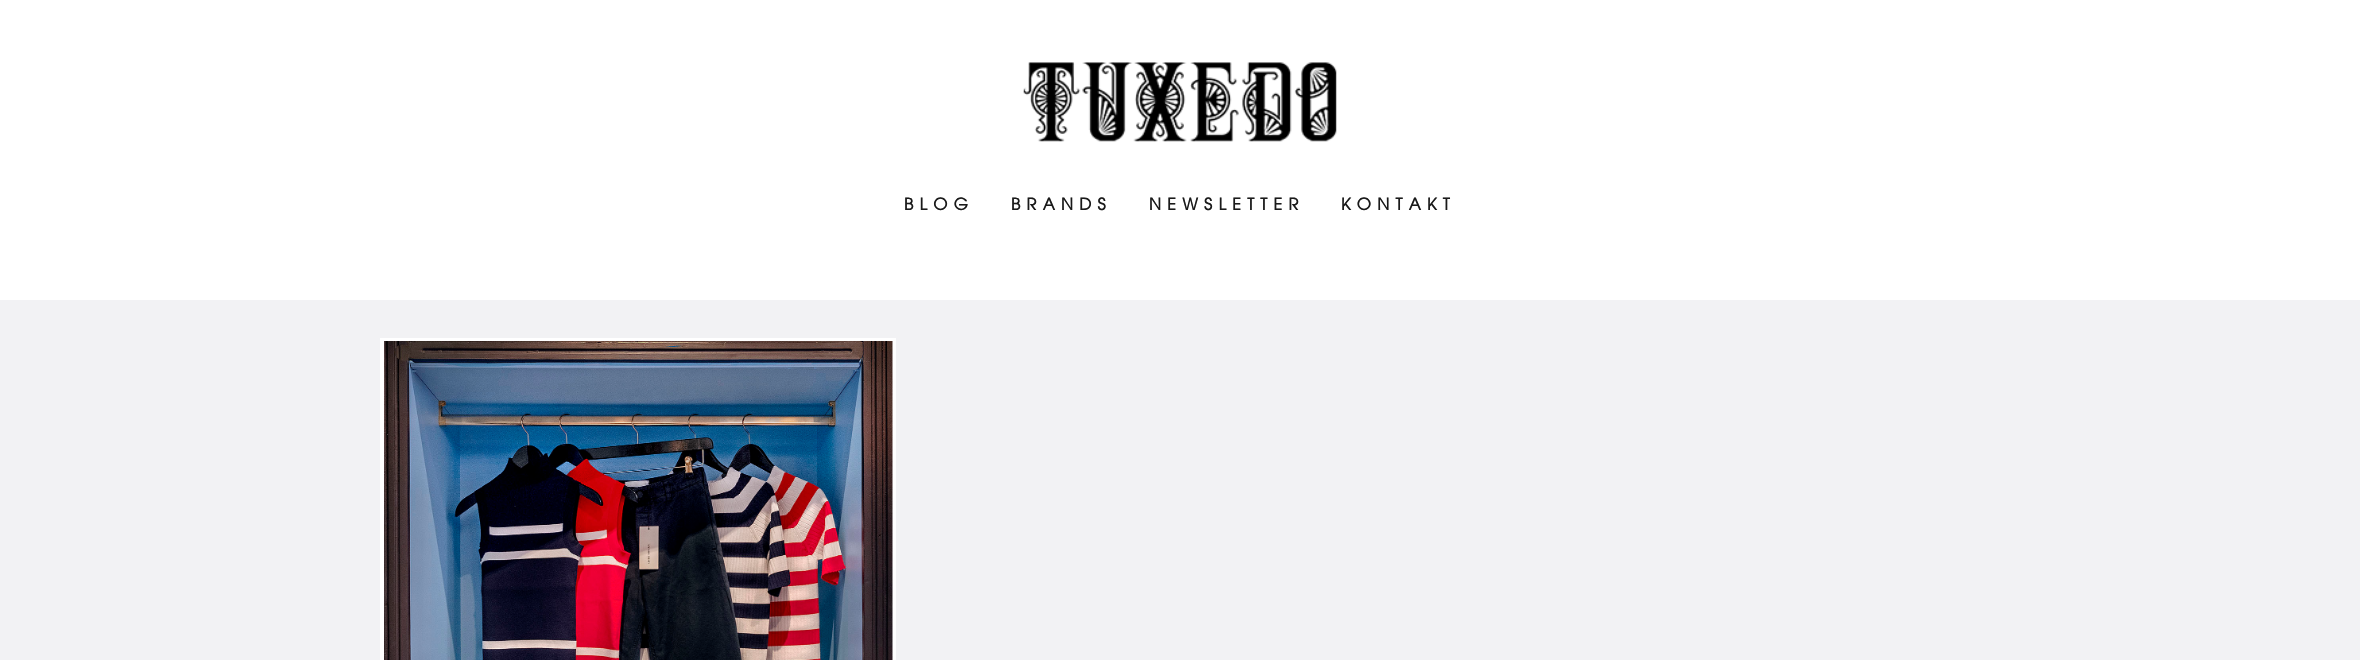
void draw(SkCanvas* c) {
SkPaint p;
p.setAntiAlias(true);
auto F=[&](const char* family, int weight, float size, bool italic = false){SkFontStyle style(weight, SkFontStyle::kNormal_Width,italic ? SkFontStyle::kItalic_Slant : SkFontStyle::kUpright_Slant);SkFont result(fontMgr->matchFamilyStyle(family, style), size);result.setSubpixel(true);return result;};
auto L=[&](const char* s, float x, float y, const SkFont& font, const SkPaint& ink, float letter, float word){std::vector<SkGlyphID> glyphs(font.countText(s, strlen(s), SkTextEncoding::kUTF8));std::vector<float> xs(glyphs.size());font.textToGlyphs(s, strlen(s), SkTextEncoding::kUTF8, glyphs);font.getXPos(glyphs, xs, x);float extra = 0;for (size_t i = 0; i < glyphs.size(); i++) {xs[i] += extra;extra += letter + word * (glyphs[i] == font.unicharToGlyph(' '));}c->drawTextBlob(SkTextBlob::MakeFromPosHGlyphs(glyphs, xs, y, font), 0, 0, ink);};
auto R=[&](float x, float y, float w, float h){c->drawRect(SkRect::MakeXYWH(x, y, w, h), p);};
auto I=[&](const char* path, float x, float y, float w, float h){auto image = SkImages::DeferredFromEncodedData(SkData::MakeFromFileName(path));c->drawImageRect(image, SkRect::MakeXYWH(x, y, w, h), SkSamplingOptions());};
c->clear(0xffffffff);
I("1.png",1023,62,314,80);
auto f1 = F("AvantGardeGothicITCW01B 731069",700,16.25);
p.setColor(0xff1a1a1a);
L("BLOG",904,210,f1,p,6.25,0);
L("BRANDS",1011,210,f1,p,6.25,0);
L("NEWSLETTER",1149,210,f1,p,6.25,0);
L("KONTAKT",1341,210,f1,p,6.25,0);
p.setColor(0xfff2f2f4);
R(0,300,2360,360);
p.setStroke(true);
p.setStrokeWidth(4);
p.setColor(0xffffffff);
c->drawRect(SkRect::MakeXYWH(382,340,512,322),p);
I("2.png",384,341,509,319);
}
